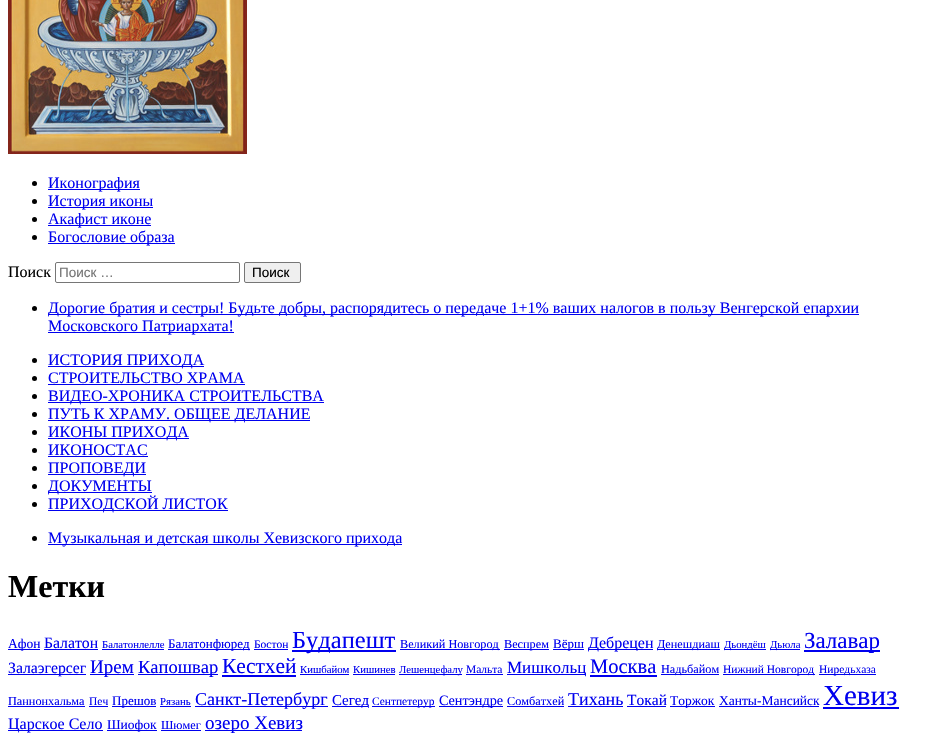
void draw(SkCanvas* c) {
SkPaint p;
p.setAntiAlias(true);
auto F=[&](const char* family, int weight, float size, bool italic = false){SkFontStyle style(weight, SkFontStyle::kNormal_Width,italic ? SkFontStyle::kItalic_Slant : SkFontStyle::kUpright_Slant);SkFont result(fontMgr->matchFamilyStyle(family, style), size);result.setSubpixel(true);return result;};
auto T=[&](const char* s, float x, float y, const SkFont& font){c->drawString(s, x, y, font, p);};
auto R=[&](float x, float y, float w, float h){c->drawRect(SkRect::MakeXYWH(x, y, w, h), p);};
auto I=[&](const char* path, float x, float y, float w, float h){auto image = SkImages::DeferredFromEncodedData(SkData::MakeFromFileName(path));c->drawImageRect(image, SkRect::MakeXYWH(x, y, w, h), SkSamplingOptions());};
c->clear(0xffffffff);
I("1.png",8,0,239,154);
p.setColor(0xff000000);
c->drawCircle(34.5,183.5,2.5,p);
p.setColor(0xff0000ee);
R(48,189,92,1);
auto f1 = F("Liberation Serif",400,16);
T("Иконография",48,188,f1);
p.setColor(0xff000000);
c->drawCircle(34.5,201.5,2.5,p);
p.setColor(0xff0000ee);
R(48,207,105,1);
T("История иконы",48,206,f1);
p.setColor(0xff000000);
c->drawCircle(34.5,219.5,2.5,p);
p.setColor(0xff0000ee);
R(48,225,103,1);
T("Акафист иконе",48,224,f1);
p.setColor(0xff000000);
c->drawCircle(34.5,237.5,2.5,p);
p.setColor(0xff0000ee);
R(48,243,127,1);
T("Богословие образа",48,242,f1);
p.setColor(0xff000000);
T("Поиск",8,277,f1);
p.setStroke(true);
p.setStrokeWidth(1);
p.setColor(0xff767676);
c->drawRoundRect(SkRect::MakeXYWH(55.5,262.5,184,20),1.5,1.5,p);
auto f2 = F("Liberation Sans",400,13.5);
p.setStroke(false);
p.setColor(0xff757575);
T("Поиск …",59,277,f2);
p.setColor(0xffefefef);
c->drawRoundRect(SkRect::MakeXYWH(244.5,262.5,56,20),1.5,1.5,p);
p.setStroke(true);
p.setColor(0xff767676);
c->drawRoundRect(SkRect::MakeXYWH(244.5,262.5,56,20),1.5,1.5,p);
p.setStroke(false);
p.setColor(0xff000000);
T("Поиск",252,277,f2);
c->drawCircle(34.5,308.5,2.5,p);
p.setColor(0xff0000ee);
R(48,314,811,1);
T("Дорогие братия и сестры! Будьте добры, распорядитесь о передаче 1+1% ваших налогов в пользу Венгерской епархии",48,313,f1);
R(48,332,186,1);
T("Московского Патриархата!",48,331,f1);
p.setColor(0xff000000);
c->drawCircle(34.5,360.5,2.5,p);
p.setColor(0xff0000ee);
R(48,366,156,1);
T("ИСТОРИЯ ПРИХОДА",48,365,f1);
p.setColor(0xff000000);
c->drawCircle(34.5,378.5,2.5,p);
p.setColor(0xff0000ee);
T("СТРОИТЕЛЬСТВО ХРАМА",48,383,f1);
R(48,384,197,1);
p.setColor(0xff000000);
c->drawCircle(34.5,396.5,2.5,p);
p.setColor(0xff0000ee);
R(48,402,276,1);
T("ВИДЕО-ХРОНИКА СТРОИТЕЛЬСТВА",48,401,f1);
p.setColor(0xff000000);
c->drawCircle(34.5,414.5,2.5,p);
p.setColor(0xff0000ee);
R(48,420,262,1);
T("ПУТЬ К ХРАМУ. ОБЩЕЕ ДЕЛАНИЕ",48,419,f1);
p.setColor(0xff000000);
c->drawCircle(34.5,432.5,2.5,p);
p.setColor(0xff0000ee);
R(48,438,141,1);
T("ИКОНЫ ПРИХОДА",48,437,f1);
p.setColor(0xff000000);
c->drawCircle(34.5,450.5,2.5,p);
p.setColor(0xff0000ee);
T("ИКОНОСТАС",48,455,f1);
R(48,456,100,1);
p.setColor(0xff000000);
c->drawCircle(34.5,468.5,2.5,p);
p.setColor(0xff0000ee);
R(48,474,98,1);
T("ПРОПОВЕДИ",48,473,f1);
p.setColor(0xff000000);
c->drawCircle(34.5,486.5,2.5,p);
p.setColor(0xff0000ee);
R(48,492,104,1);
T("ДОКУМЕНТЫ",48,491,f1);
p.setColor(0xff000000);
c->drawCircle(34.5,504.5,2.5,p);
p.setColor(0xff0000ee);
R(48,510,180,1);
T("ПРИХОДСКОЙ ЛИСТОК",48,509,f1);
p.setColor(0xff000000);
c->drawCircle(34.5,538.5,2.5,p);
p.setColor(0xff0000ee);
R(48,544,354,1);
T("Музыкальная и детская школы Хевизского прихода",48,543,f1);
auto f3 = F("Liberation Serif",700,32);
p.setColor(0xff000000);
T("Метки",8,597,f3);
p.setColor(0xff0000ee);
R(8,649,32,1);
auto f4 = F("Liberation Serif",400,13.5);
T("Афон",8,648,f4);
auto f5 = F("Liberation Serif",400,15.75);
T("Балатон",44,648,f5);
R(44,649,54,1);
auto f6 = F("Liberation Serif",400,10.75);
T("Балатонлелле",102,648,f6);
R(102,649,62,1);
R(168,649,82,1);
auto f7 = F("Liberation Serif",400,13);
T("Балатонфюред",168,648,f7);
auto f8 = F("Liberation Serif",400,11.5);
T("Бостон",254,648,f8);
R(254,649,34,1);
R(292,650,104,2);
auto f9 = F("Liberation Serif",400,24.5);
T("Будапешт",292,648,f9);
R(400,649,100,1);
auto f10 = F("Liberation Serif",400,12.25);
T("Великий Новгород",400,648,f10);
R(504,649,45,1);
T("Веспрем",504,648,f10);
R(553,649,31,1);
T("Вёрш",553,648,f7);
R(588,649,65,1);
T("Дебрецен",588,648,f1);
R(657,649,63,1);
T("Денешдиаш",657,648,f10);
R(724,649,42,1);
T("Дьондёш",724,648,f6);
R(770,649,30,1);
T("Дьюла",770,648,f6);
R(804,650,76,2);
auto f11 = F("Liberation Serif",400,23);
T("Залавар",804,648,f11);
R(8,674,78,1);
T("Залаэгерсег",8,673,f5);
R(90,674,44,1);
auto f12 = F("Liberation Serif",400,19);
T("Ирем",90,673,f12);
R(138,674,80,1);
auto f13 = F("Liberation Serif",400,18.5);
T("Капошвар",138,673,f13);
auto f14 = F("Liberation Serif",400,21.5);
T("Кестхей",222,673,f14);
R(222,675,74,2);
T("Кишбайом",300,673,f6);
R(300,674,49,1);
T("Кишинев",353,673,f6);
R(353,674,42,1);
R(399,674,63,1);
T("Лешенцефалу",399,673,f6);
T("Мальта",466,673,f8);
R(466,674,37,1);
R(507,674,79,1);
auto f15 = F("Liberation Serif",400,17);
T("Мишкольц",507,673,f15);
auto f16 = F("Liberation Serif",400,20.5);
T("Москва",590,673,f16);
R(590,675,67,2);
R(661,674,58,1);
T("Надьбайом",661,673,f10);
R(723,674,92,1);
T("Нижний Новгород",723,673,f8);
R(819,674,57,1);
T("Ниредьхаза",819,673,f8);
T("Паннонхальма",8,705,f10);
R(8,706,77,1);
T("Печ",89,705,f8);
R(89,706,19,1);
R(112,706,44,1);
T("Прешов",112,705,f7);
T("Рязань",160,705,f6);
R(160,706,31,1);
R(195,706,133,1);
auto f17 = F("Liberation Serif",400,18);
T("Санкт-Петербург",195,705,f17);
R(332,706,36,1);
auto f18 = F("Liberation Serif",400,15);
T("Сегед",332,705,f18);
R(372,706,63,1);
T("Сентпетерур",372,705,f8);
R(439,706,64,1);
auto f19 = F("Liberation Serif",400,14.25);
T("Сентэндре",439,705,f19);
T("Сомбатхей",507,705,f10);
R(507,706,57,1);
T("Тихань",568,705,f17);
R(568,706,55,1);
auto f20 = F("Liberation Serif",400,15.5);
T("Токай",627,705,f20);
R(627,706,39,1);
R(670,706,45,1);
T("Торжок",670,705,f4);
T("Ханты-Мансийск",719,705,f4);
R(719,706,100,1);
auto f21 = F("Liberation Serif",400,29);
T("Хевиз",823,705,f21);
R(823,707,76,2);
R(8,730,95,1);
T("Царское Село",8,729,f1);
R(107,730,50,1);
T("Шиофок",107,729,f4);
T("Шюмег",161,729,f10);
R(161,730,40,1);
R(205,730,97,1);
T("озеро Хевиз",205,729,f12);
}
